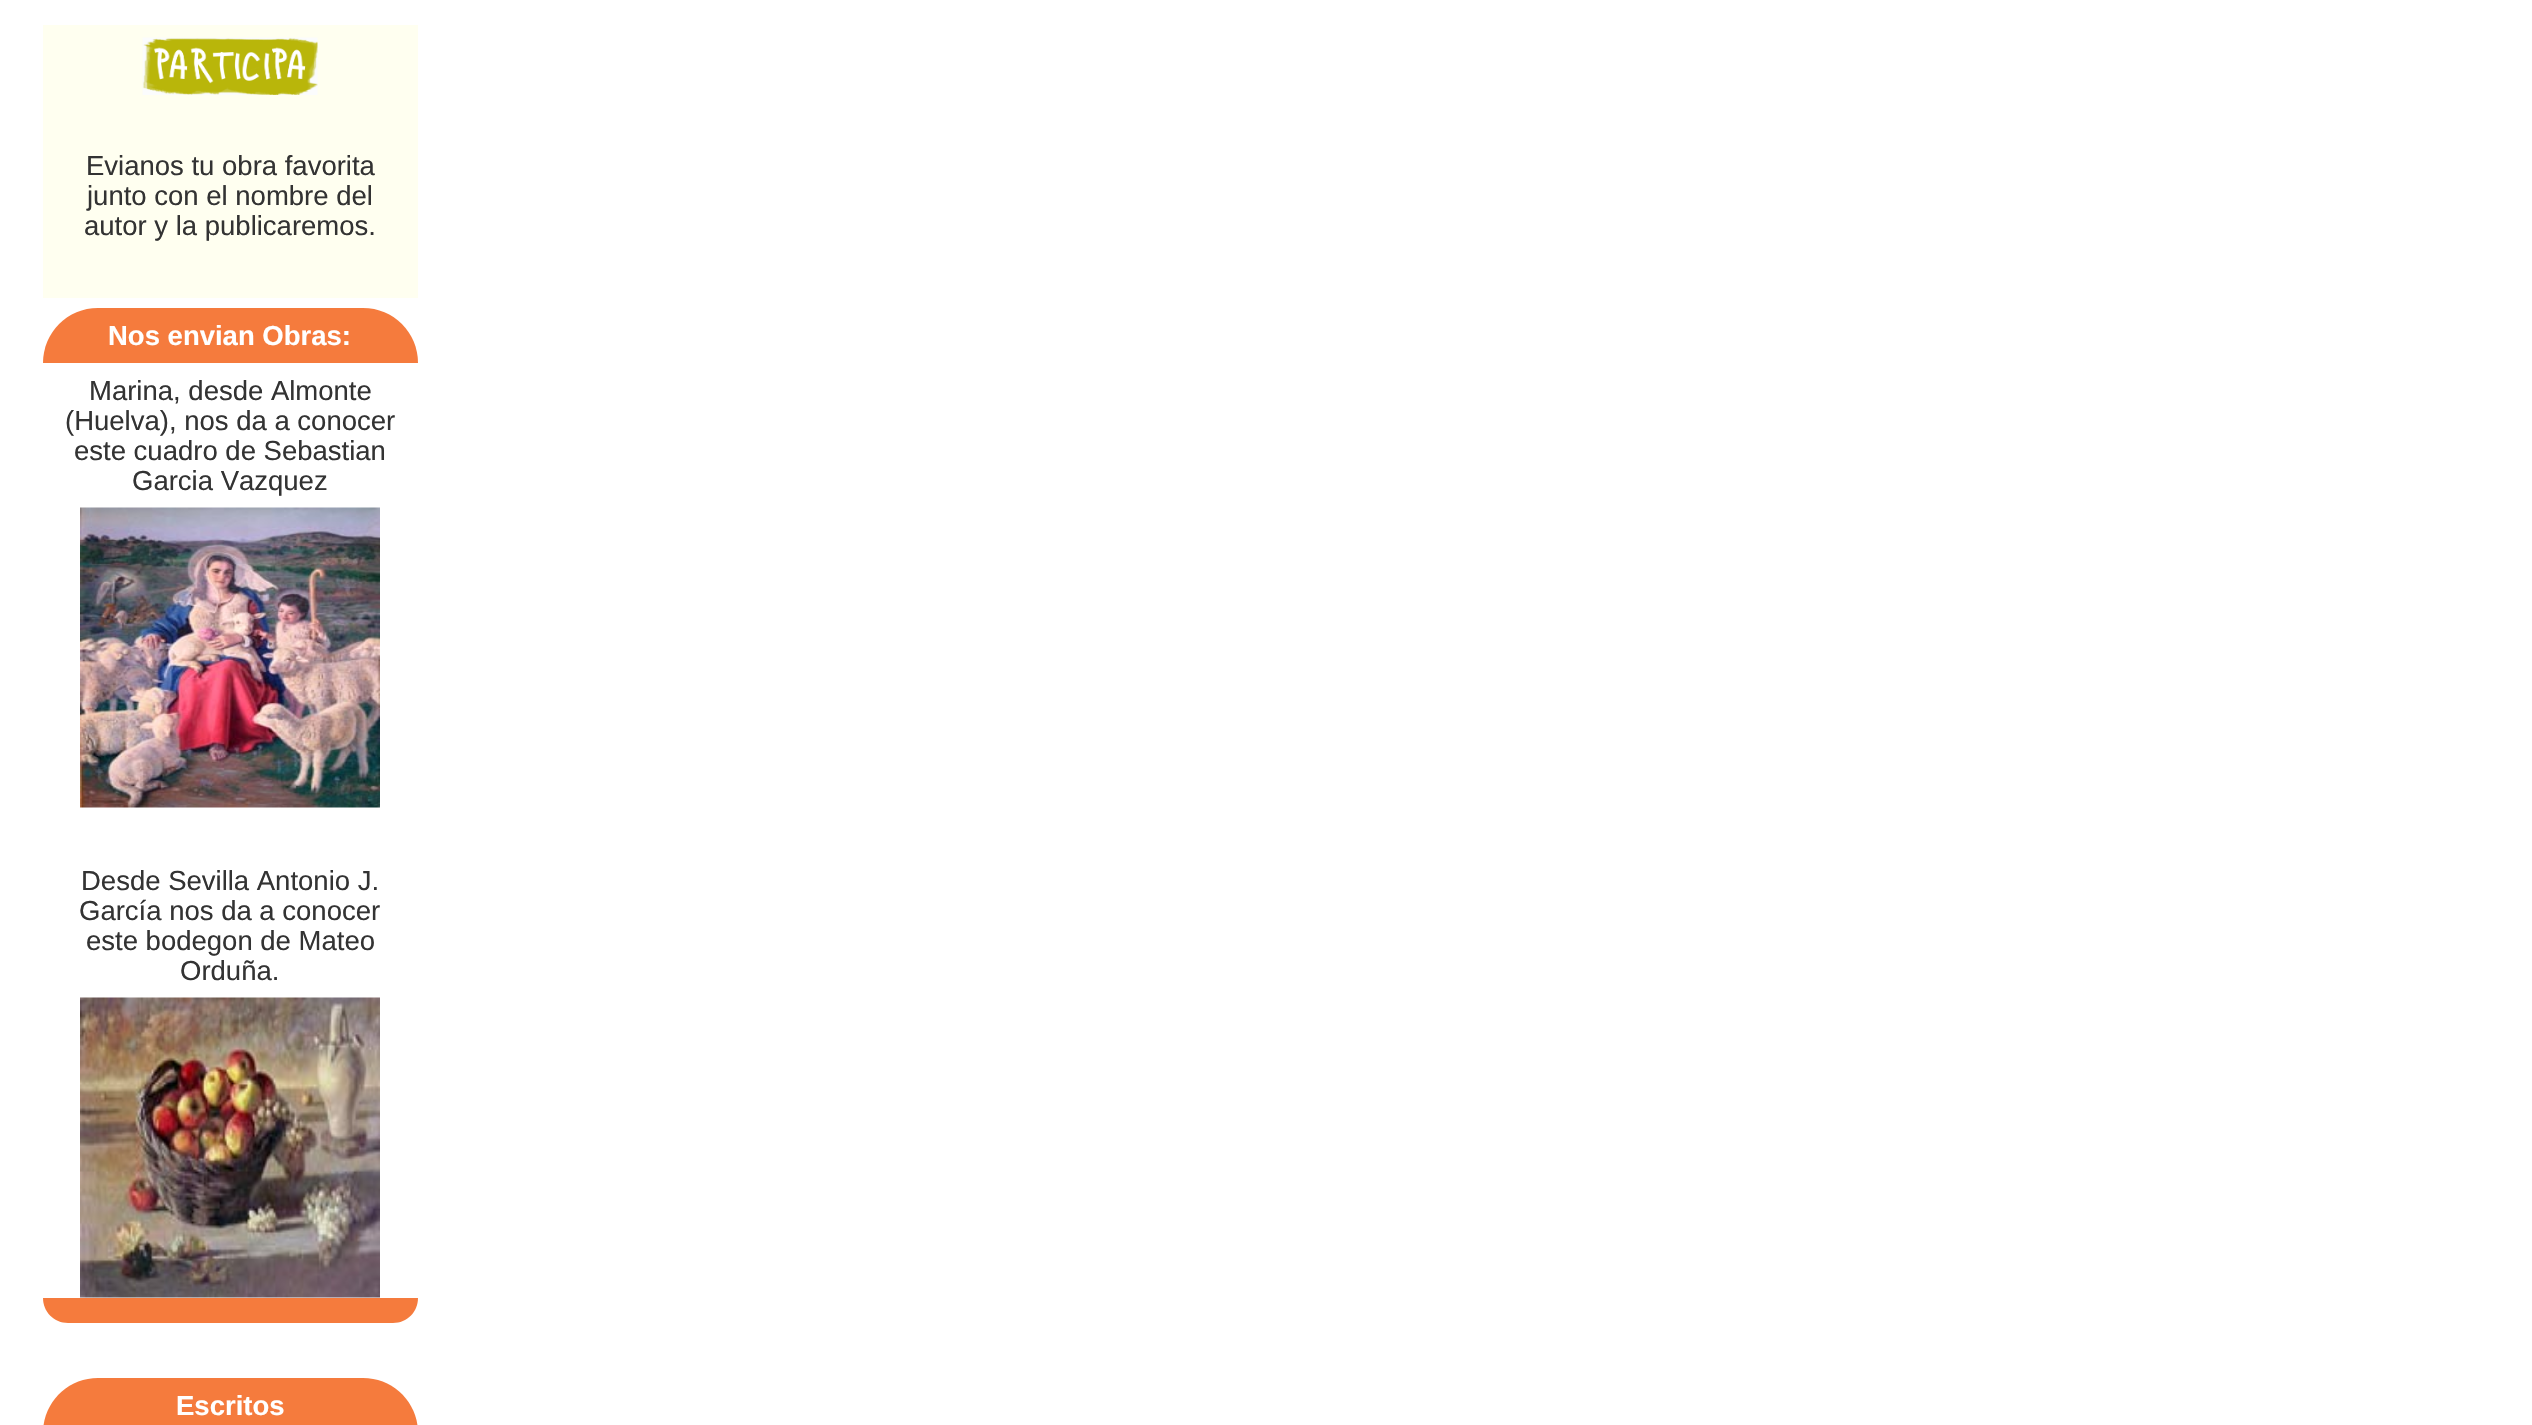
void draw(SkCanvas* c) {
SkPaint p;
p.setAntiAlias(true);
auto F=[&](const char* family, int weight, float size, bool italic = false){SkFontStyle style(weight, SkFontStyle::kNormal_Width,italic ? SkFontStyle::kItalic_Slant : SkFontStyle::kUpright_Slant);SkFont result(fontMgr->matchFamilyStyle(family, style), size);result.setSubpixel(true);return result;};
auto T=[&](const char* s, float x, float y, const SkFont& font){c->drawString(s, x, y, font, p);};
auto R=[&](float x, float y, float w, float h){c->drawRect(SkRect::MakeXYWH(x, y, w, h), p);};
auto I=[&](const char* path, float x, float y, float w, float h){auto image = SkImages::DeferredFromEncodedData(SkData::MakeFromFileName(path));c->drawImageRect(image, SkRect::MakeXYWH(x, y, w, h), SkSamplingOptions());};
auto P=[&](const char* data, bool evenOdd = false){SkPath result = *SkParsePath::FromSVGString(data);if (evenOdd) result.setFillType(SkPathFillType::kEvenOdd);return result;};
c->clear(0xffffffff);
p.setColor(0xfffffff0);
R(43,25,375,273);
I("1.png",142,37,176,58);
auto f1 = F("Liberation Sans",400,27.5);
p.setColor(0xff333333);
T("Evianos tu obra favorita",86,175,f1);
T("junto con el nombre del",87,205,f1);
T("autor y la publicaremos.",84,235,f1);
p.setColor(0xfff57b3d);
c->drawPath(P("M98 308h265c30.5 0 55 24.5 55 55h-375c0-30.5 24.5-55 55-55z"),p);
auto f2 = F("Liberation Sans",700,27.5);
p.setColor(0xffffffff);
T("Nos envian Obras:",108,345,f2);
p.setColor(0xff333333);
T("Marina, desde Almonte",89,400,f1);
T("(Huelva), nos da a conocer",65,430,f1);
T("este cuadro de Sebastian",74,460,f1);
T("Garcia Vazquez",132,490,f1);
I("2.png",80,507,300,301);
T("Desde Sevilla Antonio J.",81,890,f1);
T("García nos da a conocer",79,920,f1);
T("este bodegon de Mateo",86,950,f1);
T("Orduña.",180,980,f1);
I("3.png",80,997,300,301);
p.setColor(0xfff57b3d);
c->drawPath(P("M43 1298h375c0 14-11 25-25 25h-325c-14 0-25-11-25-25z"),p);
c->drawPath(P("M98 1378h265c30.5 0 55 24.5 55 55h-375c0-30.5 24.5-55 55-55z"),p);
p.setColor(0xffffffff);
T("Escritos",176,1415,f2);
}
